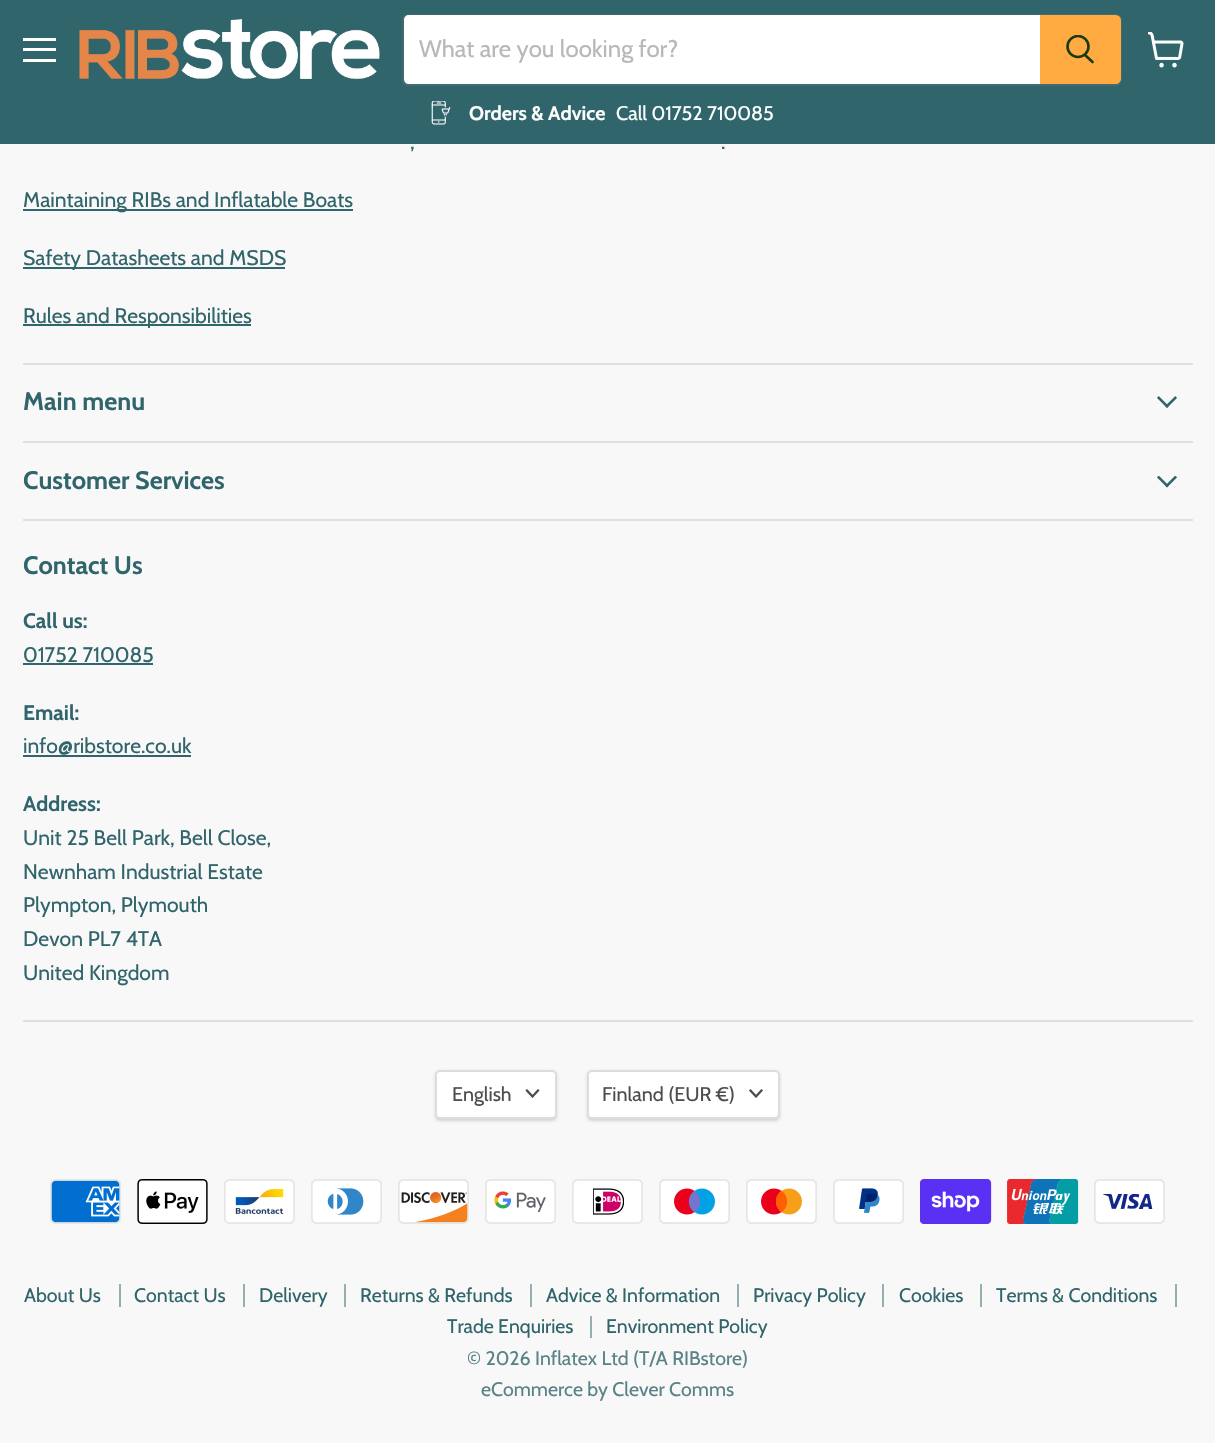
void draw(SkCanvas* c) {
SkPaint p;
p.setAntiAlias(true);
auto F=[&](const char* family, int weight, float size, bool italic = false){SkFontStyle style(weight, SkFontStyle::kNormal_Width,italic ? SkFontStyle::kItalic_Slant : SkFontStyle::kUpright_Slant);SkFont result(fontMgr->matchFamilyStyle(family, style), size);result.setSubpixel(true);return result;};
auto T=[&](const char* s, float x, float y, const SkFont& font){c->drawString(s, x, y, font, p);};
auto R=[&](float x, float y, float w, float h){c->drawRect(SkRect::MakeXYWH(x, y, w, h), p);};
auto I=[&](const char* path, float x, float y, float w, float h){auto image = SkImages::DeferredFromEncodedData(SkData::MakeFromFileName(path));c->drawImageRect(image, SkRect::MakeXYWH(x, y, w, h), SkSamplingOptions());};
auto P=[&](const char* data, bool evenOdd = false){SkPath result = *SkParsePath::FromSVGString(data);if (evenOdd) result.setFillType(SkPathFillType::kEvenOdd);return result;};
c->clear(0xfff8f8f8);
p.setColor(0xff30656b);
R(0,0,1215,144);
p.setColor(0xffffffff);
R(23,38,33,3);
R(23,48,33,3);
R(23,59,33,3);
I("1.png",79,19,301,60);
p.setStroke(true);
p.setStrokeWidth(2);
p.setColor(0x33808080);
c->drawRoundRect(SkRect::MakeXYWH(403,15,718,70),5,5,p);
p.setStroke(false);
p.setColor(0xffffffff);
c->drawPath(P("M409 15h631v69h-631c-3 0-5-2-5-5v-59c0-3 2-5 5-5z"),p);
auto f1 = F("Cabin",400,24);
p.setColor(0xffb8b8b8);
T("What are you looking for?",419,57,f1);
p.setColor(0xffffab41);
c->drawPath(P("M1041 16h75c2 0 4 2 4 4v59c0 2-2 4-4 4h-75z"),p);
p.setStroke(true);
c->drawPath(P("M1041 16h75c2 0 4 2 4 4v59c0 2-2 4-4 4h-75z"),p);
p.setStrokeWidth(2.6);
p.setStrokeCap(SkPaint::kRound_Cap);
p.setColor(0xff1a390c);
c->drawPath(P("M1092.5 62l-7.5-7"),p);
c->save();
c->clipRect(SkRect::MakeXYWH(1065,35,30,31));
p.setStrokeCap(SkPaint::kButt_Cap);
c->drawCircle(1078,46.5,10.5,p);
c->restore();
I("2.png",431,101,20,24);
auto f2 = F("Cabin",700,19.75);
p.setStroke(false);
p.setColor(0xffffffff);
T("Orders & Advice",469,120,f2);
auto f3 = F("Cabin",400,19.75);
T("Call 01752 710085",616,120,f3);
I("3.png",1148,32,36,36);
p.setColor(0xffdae2e3);
R(23,363,1170,2);
auto f4 = F("Cabin",400,21.1);
p.setColor(0xff30656b);
T(",",410,149,f4);
T(".",721,149,f4);
R(23,209,330,2);
T("Maintaining RIBs and Inflatable Boats",23,207,f4);
R(23,267,262,2);
T("Safety Datasheets and MSDS",23,265,f4);
R(23,324,228,2);
T("Rules and Responsibilities",23,323,f4);
p.setColor(0xffdae2e3);
R(23,441,1170,2);
auto f5 = F("Cabin",700,25.25);
p.setColor(0xff30656b);
T("Main menu",23,410,f5);
I("4.png",1157,396,20,12);
p.setColor(0xffdae2e3);
R(23,519,1170,2);
p.setColor(0xff30656b);
T("Customer Services",23,489,f5);
I("5.png",1157,476,20,12);
p.setColor(0xffdae2e3);
R(23,1020,1170,2);
p.setColor(0xff30656b);
T("Contact Us",23,574,f5);
auto f6 = F("Cabin",700,21.1);
T("Call us:",23,628,f6);
T("01752 710085",23,662,f4);
R(23,663,130,2);
T("Email:",23,720,f6);
T("info@ribstore.co.uk",23,753,f4);
R(23,755,168,2);
T("Address:",23,811,f6);
T("Unit 25 Bell Park, Bell Close,",23,845,f4);
T("Newnham Industrial Estate",23,879,f4);
T("Plympton, Plymouth",23,912,f4);
T("Devon PL7 4TA",23,946,f4);
T("United Kingdom",23,980,f4);
p.setColor(0x26000000);
p.setMaskFilter(SkMaskFilter::MakeBlur(kNormal_SkBlurStyle, 1.5));
c->drawRoundRect(SkRect::MakeXYWH(435,1071,122,50),5,5,p);
p.setMaskFilter(nullptr);
p.setColor(0xffffffff);
c->drawRoundRect(SkRect::MakeXYWH(436,1071,120,47),4,4,p);
p.setStroke(true);
p.setStrokeWidth(2);
p.setColor(0xffdddddd);
c->drawRoundRect(SkRect::MakeXYWH(436,1071,120,47),4,4,p);
p.setStroke(false);
p.setColor(0xff4d4d4d);
T("English",452,1101,f3);
p.setStroke(true);
p.setStrokeWidth(2.3);
p.setStrokeCap(SkPaint::kSquare_Cap);
c->drawPath(P("M532.5 1096.5l5.5-6m-5.5 6l-5.5-6"),p);
p.setStroke(false);
p.setColor(0x26000000);
p.setMaskFilter(SkMaskFilter::MakeBlur(kNormal_SkBlurStyle, 1.5));
c->drawRoundRect(SkRect::MakeXYWH(587,1071,193,50),5,5,p);
p.setMaskFilter(nullptr);
p.setColor(0xffffffff);
c->drawRoundRect(SkRect::MakeXYWH(588,1071,191,47),4,4,p);
p.setStroke(true);
p.setStrokeWidth(2);
p.setStrokeCap(SkPaint::kButt_Cap);
p.setColor(0xffdddddd);
c->drawRoundRect(SkRect::MakeXYWH(588,1071,191,47),4,4,p);
p.setStroke(false);
p.setColor(0xff4d4d4d);
T("Finland (EUR €)",602,1101,f3);
p.setStroke(true);
p.setStrokeWidth(2.3);
p.setStrokeCap(SkPaint::kSquare_Cap);
c->drawPath(P("M756 1096.5l5.5-6m-5.5 6l-5.5-6"),p);
I("6.png",50,1179,71,45);
I("7.png",137,1179,71,45);
I("8.png",224,1179,71,45);
I("9.png",311,1179,71,45);
I("10.png",398,1179,71,45);
I("11.png",485,1179,71,45);
I("12.png",572,1179,71,45);
I("13.png",659,1179,71,45);
I("14.png",746,1179,71,45);
I("15.png",833,1179,71,45);
I("16.png",920,1179,72,45);
I("17.png",1007,1179,72,45);
I("18.png",1094,1179,71,45);
p.setStroke(false);
p.setColor(0xff94afb2);
R(119,1284,2,23);
auto f7 = F("Cabin",400,19.5);
p.setColor(0xff30656b);
T("About Us",24,1302,f7);
p.setColor(0xff94afb2);
R(243,1284,2,23);
p.setColor(0xff30656b);
T("Contact Us",134,1302,f7);
p.setColor(0xff94afb2);
R(344,1284,2,23);
p.setColor(0xff30656b);
T("Delivery",259,1302,f7);
p.setColor(0xff94afb2);
R(530,1284,2,23);
p.setColor(0xff30656b);
T("Returns & Refunds",360,1302,f7);
p.setColor(0xff94afb2);
R(737,1284,2,23);
p.setColor(0xff30656b);
T("Advice & Information",546,1302,f7);
p.setColor(0xff94afb2);
R(882,1284,2,23);
p.setColor(0xff30656b);
T("Privacy Policy",753,1302,f7);
p.setColor(0xff94afb2);
R(980,1284,2,23);
p.setColor(0xff30656b);
T("Cookies",899,1302,f7);
p.setColor(0xff94afb2);
R(1175,1284,2,23);
p.setColor(0xff30656b);
T("Terms & Conditions",996,1302,f7);
p.setColor(0xff94afb2);
R(590,1316,2,22);
p.setColor(0xff30656b);
T("Trade Enquiries",447,1333,f7);
T("Environment Policy",606,1333,f7);
p.setColor(0xff588287);
T("© 2026 Inflatex Ltd (T/A RIBstore)",467,1365,f7);
T("eCommerce by Clever Comms",481,1396,f7);
}
